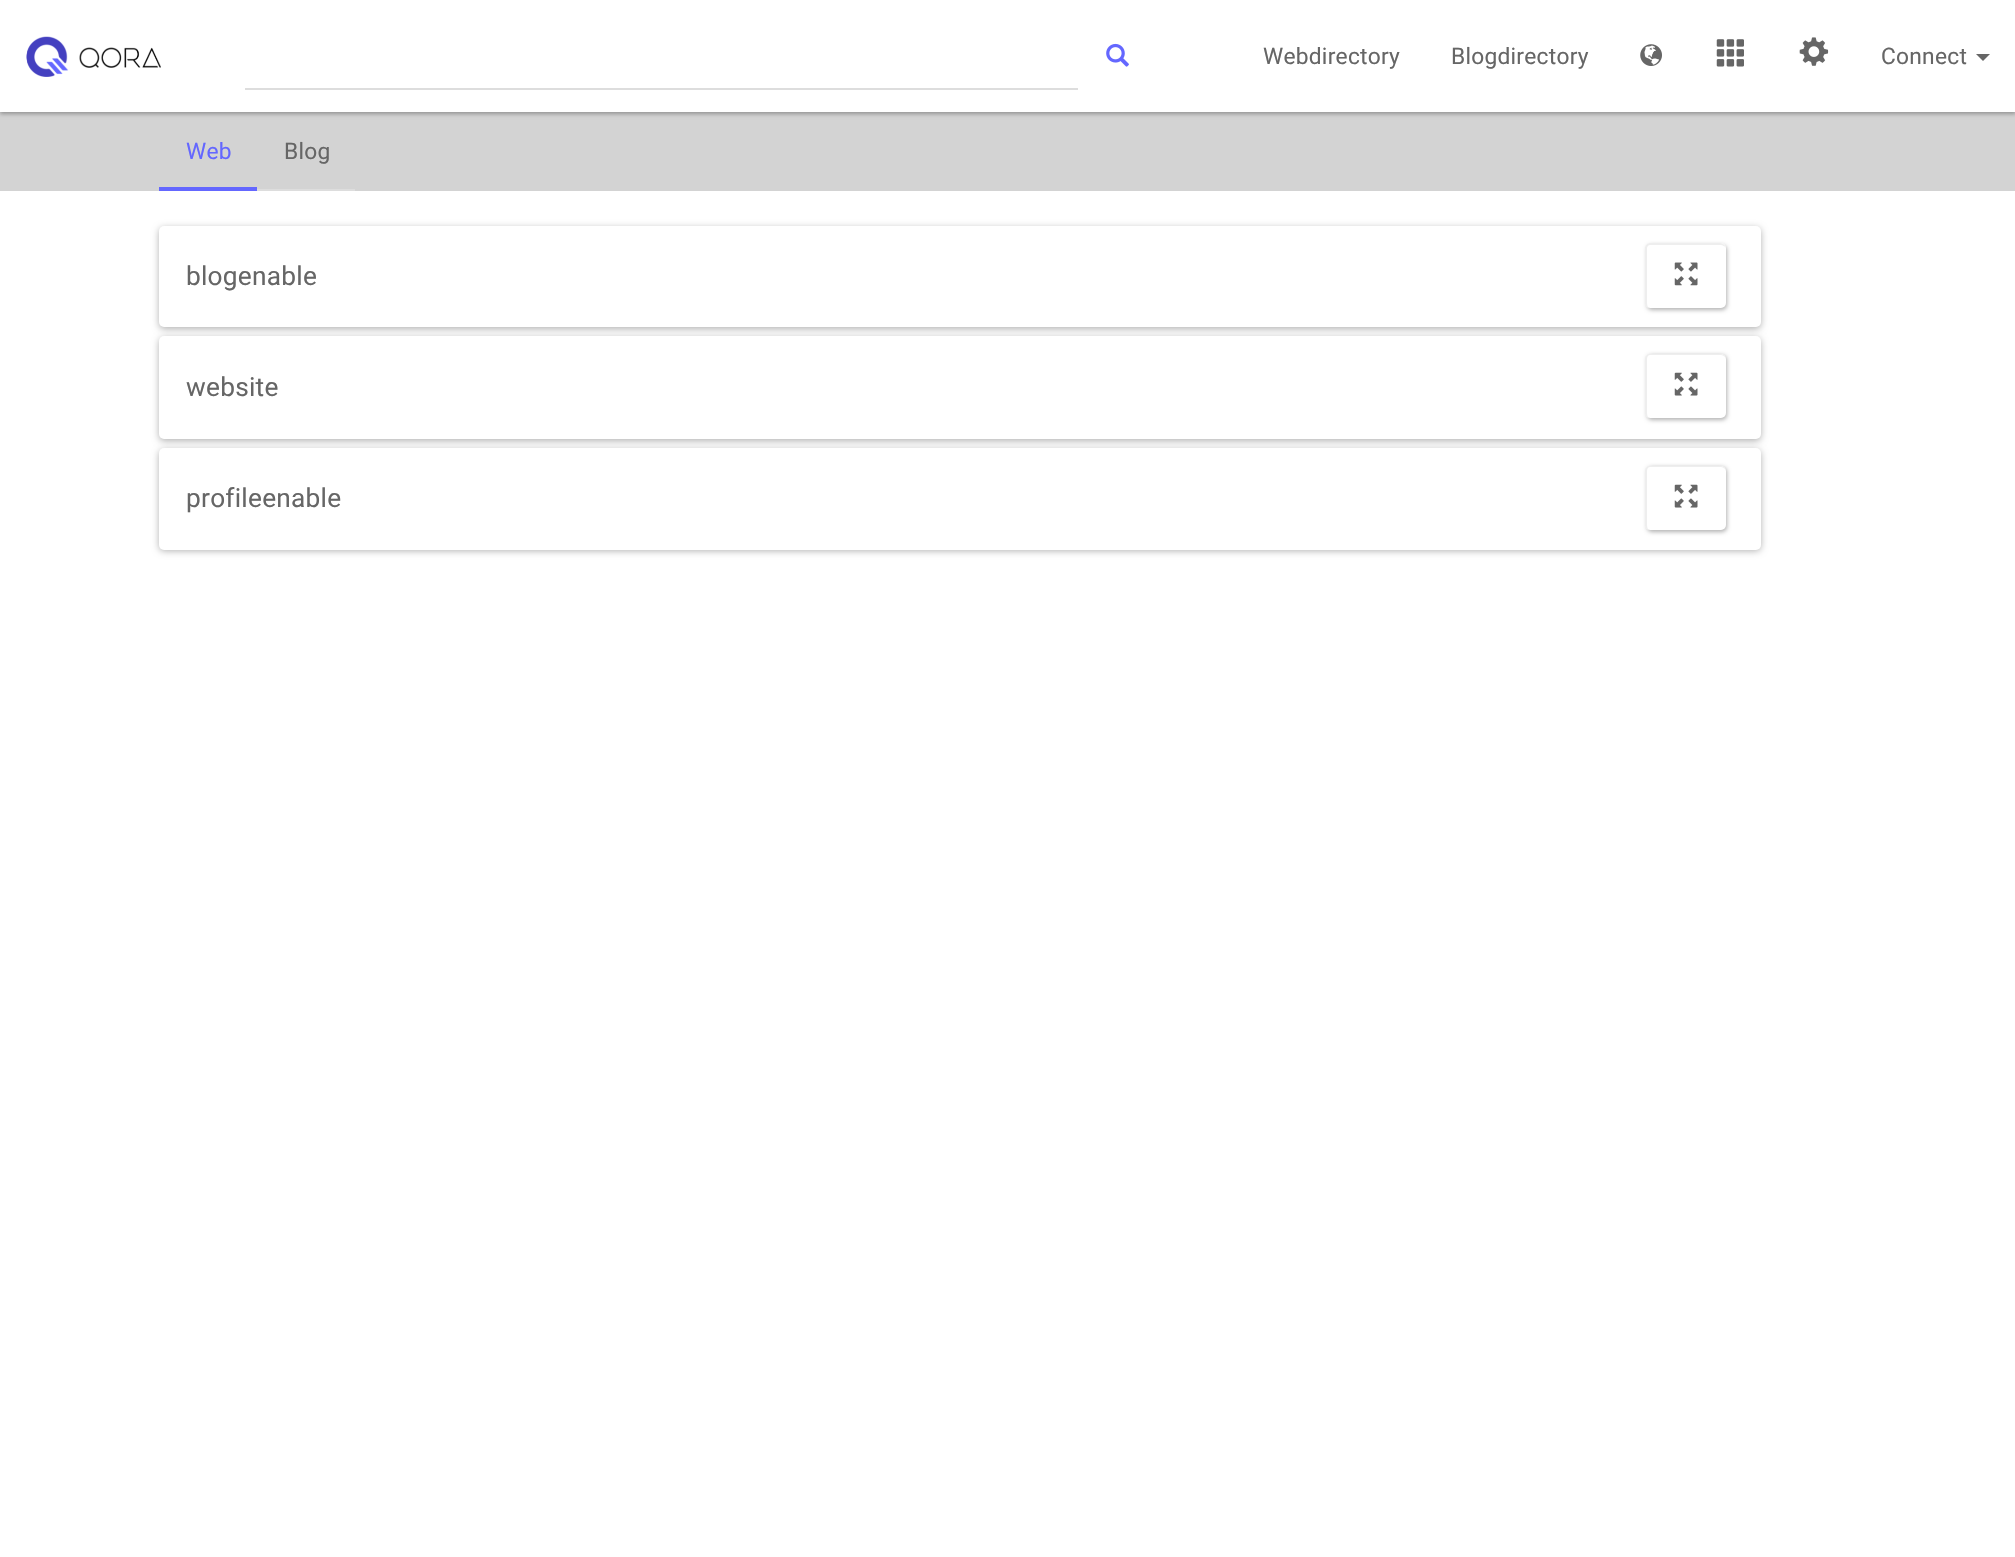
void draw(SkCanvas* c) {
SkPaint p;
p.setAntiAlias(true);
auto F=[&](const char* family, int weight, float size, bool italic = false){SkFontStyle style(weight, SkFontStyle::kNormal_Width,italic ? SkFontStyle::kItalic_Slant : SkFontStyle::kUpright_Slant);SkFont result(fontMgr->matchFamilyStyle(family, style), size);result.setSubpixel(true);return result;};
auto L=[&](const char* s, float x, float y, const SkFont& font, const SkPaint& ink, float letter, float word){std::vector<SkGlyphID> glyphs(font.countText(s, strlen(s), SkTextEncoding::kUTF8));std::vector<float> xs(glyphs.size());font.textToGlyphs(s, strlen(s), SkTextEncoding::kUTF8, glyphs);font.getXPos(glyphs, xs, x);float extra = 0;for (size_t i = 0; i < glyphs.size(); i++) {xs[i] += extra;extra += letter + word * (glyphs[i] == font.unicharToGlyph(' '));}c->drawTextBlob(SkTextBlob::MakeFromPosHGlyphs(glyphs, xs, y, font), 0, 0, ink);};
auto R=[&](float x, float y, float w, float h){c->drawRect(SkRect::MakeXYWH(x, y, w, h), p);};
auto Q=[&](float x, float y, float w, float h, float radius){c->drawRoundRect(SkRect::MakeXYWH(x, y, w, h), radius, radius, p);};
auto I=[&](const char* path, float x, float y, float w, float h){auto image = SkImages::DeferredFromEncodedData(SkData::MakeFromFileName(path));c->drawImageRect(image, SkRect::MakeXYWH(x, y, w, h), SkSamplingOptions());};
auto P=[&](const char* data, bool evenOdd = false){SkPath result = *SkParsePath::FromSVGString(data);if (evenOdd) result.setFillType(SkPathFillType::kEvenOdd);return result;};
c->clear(0xffffffff);
p.setColor(0xffd3d3d3);
R(0,112,2015,79);
p.setColor(0x4d000000);
p.setMaskFilter(SkMaskFilter::MakeBlur(kNormal_SkBlurStyle, 2));
c->drawRect(SkRect::MakeXYWH(0,2,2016,112),p);
p.setMaskFilter(nullptr);
p.setColor(0xffffffff);
R(0,0,2015,112);
I("1.png",26,36,135,41);
I("2.png",1106,43,23,24);
p.setColor(0xffdddddd);
R(245,88,833,2);
auto f1 = F("Roboto",400,22.75);
p.setColor(0xff666666);
L("Webdirectory",1263,64,f1,p,.25,0);
L("Blogdirectory",1451,64,f1,p,.25,0);
I("3.png",1640,44,22,22);
I("4.png",1716,39,28,28);
I("5.png",1799,37,30,29);
L("Connect",1881,64,f1,p,.25,0);
c->drawPath(P("M1976 54h14l-7 7z"),p);
p.setColor(0xff6467ff);
R(159,187,98,4);
L("Web",186,159,f1,p,.25,0);
p.setColor(0xffdddddd);
R(257,189,98,2);
p.setColor(0xff666666);
L("Blog",284,159,f1,p,.25,0);
p.setColor(0x4d000000);
p.setMaskFilter(SkMaskFilter::MakeBlur(kNormal_SkBlurStyle, 3.5));
c->drawRoundRect(SkRect::MakeXYWH(159,228,1602,101),5,5,p);
p.setMaskFilter(nullptr);
p.setColor(0xffffffff);
Q(159,226,1602,101,5);
auto f2 = F("Roboto",400,26.25);
p.setColor(0xff666666);
L("blogenable",186,285,f2,p,.25,0);
p.setColor(0x4d000000);
p.setMaskFilter(SkMaskFilter::MakeBlur(kNormal_SkBlurStyle, 2));
c->drawRoundRect(SkRect::MakeXYWH(1647,245,80,65),5,5,p);
p.setMaskFilter(nullptr);
p.setColor(0xffffffff);
Q(1645,243,81,65,5);
p.setColor(0xffeeeeee);
c->drawPath(P("M1650 243h70c3 0 6 3 6 5v55c0 3-3 5-6 5h-70c-3 0-5-2-5-5v-55c0-2 2-5 5-5zm0 2h70c3 0 6 2 6 3v55c0 3-3 5-6 5h-70c-2 0-3-2-3-5v-55c0-1 1-3 3-3z",true),p);
I("6.png",1674,262,24,24);
p.setColor(0x4d000000);
p.setMaskFilter(SkMaskFilter::MakeBlur(kNormal_SkBlurStyle, 3.5));
c->drawRoundRect(SkRect::MakeXYWH(159,338,1602,103),5,5,p);
p.setMaskFilter(nullptr);
p.setColor(0xffffffff);
Q(159,336,1602,103,5);
p.setColor(0xff666666);
L("website",186,396,f2,p,.25,0);
p.setColor(0x4d000000);
p.setMaskFilter(SkMaskFilter::MakeBlur(kNormal_SkBlurStyle, 2));
c->drawRoundRect(SkRect::MakeXYWH(1647,355,80,65),5,5,p);
p.setMaskFilter(nullptr);
p.setColor(0xffffffff);
Q(1645,354,81,64,5);
p.setColor(0xffeeeeee);
c->drawPath(P("M1650 354h70c3 0 6 2 6 5v54c0 3-3 5-6 5h-70c-3 0-5-2-5-5v-54c0-3 2-5 5-5zm0 1h70c3 0 6 2 6 4v54c0 3-3 5-6 5h-70c-2 0-3-2-3-5v-54c0-2 1-4 3-4z",true),p);
I("7.png",1674,372,24,24);
p.setColor(0x4d000000);
p.setMaskFilter(SkMaskFilter::MakeBlur(kNormal_SkBlurStyle, 3.5));
c->drawRoundRect(SkRect::MakeXYWH(159,450,1602,101),5,5,p);
p.setMaskFilter(nullptr);
p.setColor(0xffffffff);
Q(159,448,1602,102,5);
p.setColor(0xff666666);
L("profileenable",186,507,f2,p,.25,0);
p.setColor(0x4d000000);
p.setMaskFilter(SkMaskFilter::MakeBlur(kNormal_SkBlurStyle, 2));
c->drawRoundRect(SkRect::MakeXYWH(1647,467,80,65),5,5,p);
p.setMaskFilter(nullptr);
p.setColor(0xffffffff);
Q(1645,466,81,64,5);
p.setColor(0xffeeeeee);
c->drawPath(P("M1650 466h70c3 0 6 2 6 5v54c0 3-3 5-6 5h-70c-3 0-5-2-5-5v-54c0-3 2-5 5-5zm0 1h70c3 0 6 2 6 4v54c0 3-3 5-6 5h-70c-2 0-3-2-3-5v-54c0-2 1-4 3-4z",true),p);
I("7.png",1674,484,24,24);
}
